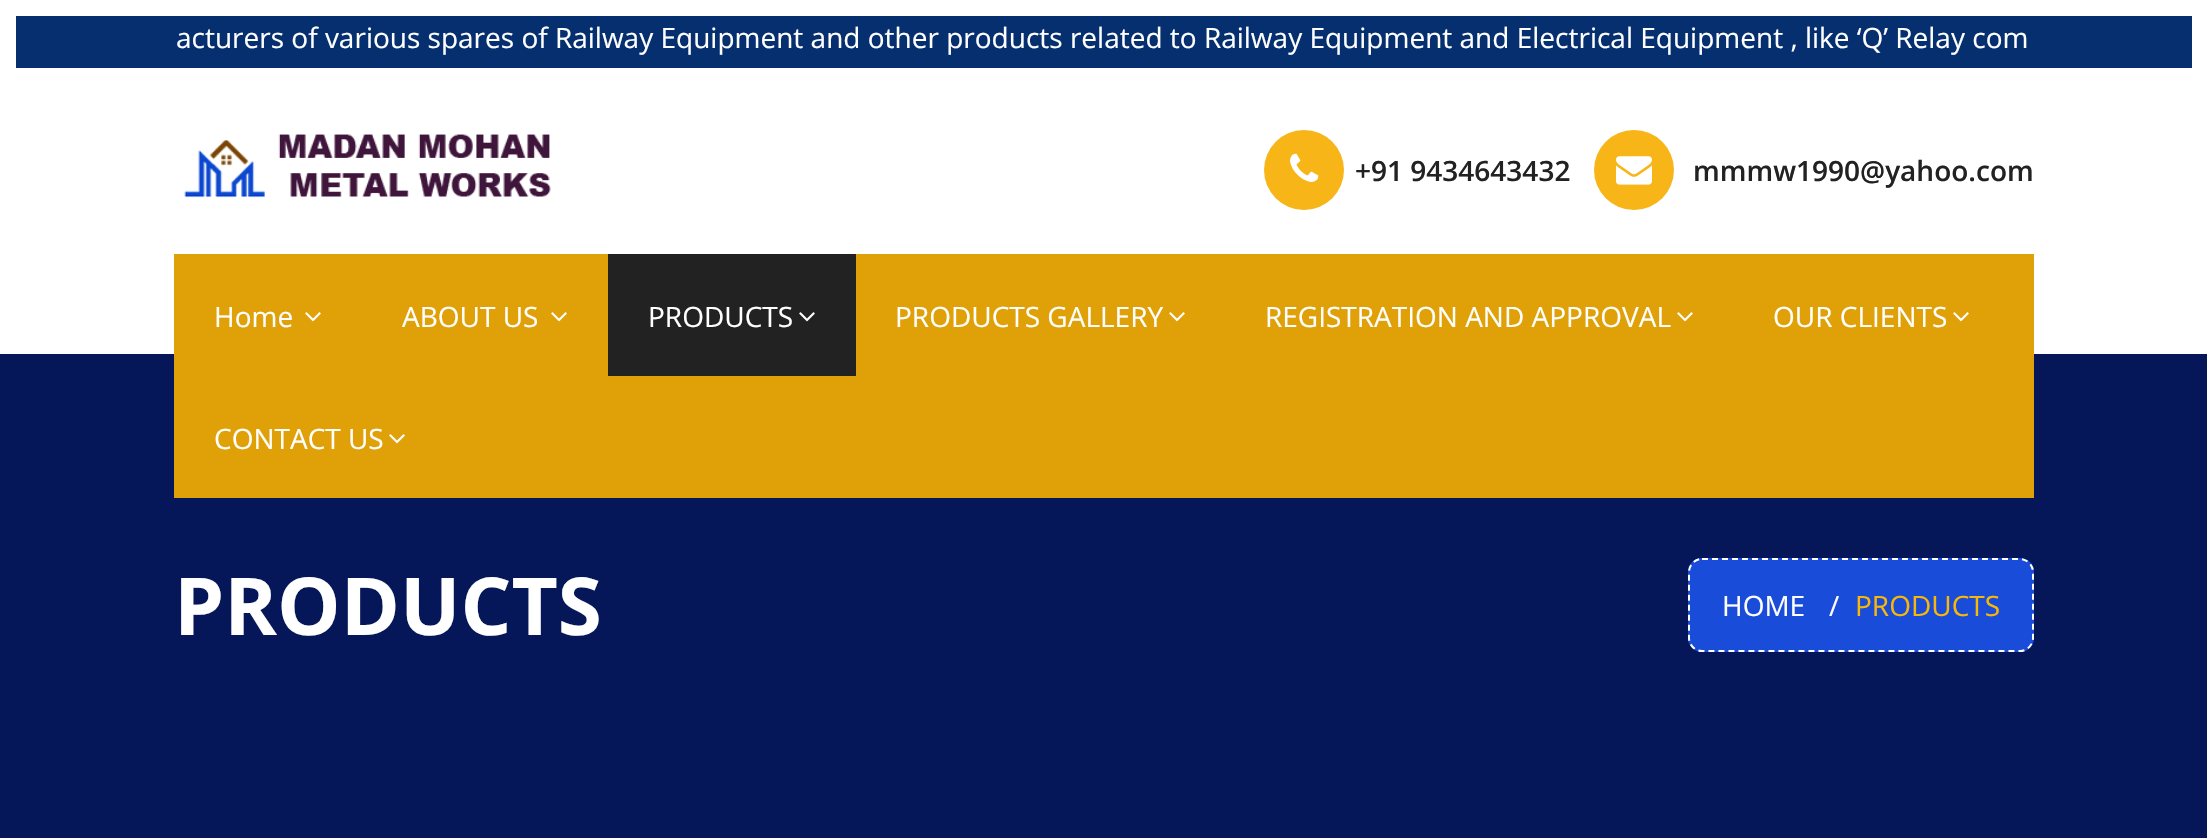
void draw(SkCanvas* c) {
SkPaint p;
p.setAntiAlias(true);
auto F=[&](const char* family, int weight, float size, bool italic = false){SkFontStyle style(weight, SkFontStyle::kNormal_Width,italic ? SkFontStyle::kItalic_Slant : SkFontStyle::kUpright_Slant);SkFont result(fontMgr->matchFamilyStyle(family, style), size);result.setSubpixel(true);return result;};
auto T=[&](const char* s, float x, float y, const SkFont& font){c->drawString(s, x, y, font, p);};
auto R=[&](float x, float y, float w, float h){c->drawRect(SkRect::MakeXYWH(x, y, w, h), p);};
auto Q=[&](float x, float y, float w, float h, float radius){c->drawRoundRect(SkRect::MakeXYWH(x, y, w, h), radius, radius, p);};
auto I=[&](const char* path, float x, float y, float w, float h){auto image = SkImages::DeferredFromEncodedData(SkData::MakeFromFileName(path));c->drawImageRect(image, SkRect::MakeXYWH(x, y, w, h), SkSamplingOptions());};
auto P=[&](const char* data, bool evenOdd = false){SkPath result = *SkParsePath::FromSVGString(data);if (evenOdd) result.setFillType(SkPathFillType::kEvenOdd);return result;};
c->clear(0xffffffff);
p.setColor(0xff062f6f);
R(16,16,2176,52);
auto f1 = F("Open Sans",400,28);
p.setColor(0xffffffff);
T("acturers of various spares of Railway Equipment and other products related to Railway Equipment and Electrical Equipment , like ‘Q’ Relay com",176,48,f1);
I("1.png",184,134,367,64);
p.setColor(0xfff7b518);
c->drawCircle(1304,170,40,p);
I("2.png",1290,153,29,29);
auto f2 = F("Open Sans",600,28);
p.setColor(0xff222222);
T("+91 9434643432",1355,181,f2);
p.setColor(0xfff7b518);
c->drawCircle(1634,170,40,p);
I("3.png",1616,156,36,29);
p.setColor(0xff222222);
T("mmmw1990@yahoo.com",1693,181,f2);
p.setColor(0xff051759);
R(0,354,2207,484);
p.setColor(0xffe0a008);
R(174,254,1860,244);
p.setColor(0xffffffff);
T("Home",214,327,f1);
I("4.png",305,312,16,10);
T("ABOUT US",402,327,f1);
I("4.png",551,312,16,10);
p.setColor(0xff222222);
R(608,254,248,122);
p.setColor(0xffffffff);
T("PRODUCTS",648,327,f1);
I("5.png",799,312,16,10);
T("PRODUCTS GALLERY",895,327,f1);
I("4.png",1169,312,16,10);
T("REGISTRATION AND APPROVAL",1265,327,f1);
I("4.png",1677,312,16,10);
T("OUR CLIENTS",1773,327,f1);
I("4.png",1953,312,16,10);
T("CONTACT US",214,449,f1);
I("4.png",389,434,16,10);
auto f3 = F("Open Sans",700,80);
T("PRODUCTS",174,635,f3);
p.setColor(0xff194cd9);
Q(1688,558,346,94,14);
p.setStroke(true);
p.setStrokeWidth(2);
p.setColor(0xffffffff);
p.setPathEffect(SkDashPathEffect::Make({{6,4}}, 0));
c->drawPath(P("M1702 559h318c7 0 13 6 13 13v66c0 7-6 13-13 13h-318c-7 0-13-6-13-13v-66c0-7 6-13 13-13z"),p);
p.setPathEffect(nullptr);
p.setStroke(false);
T("HOME",1722,616,f1);
T("/",1829,616,f1);
p.setColor(0xfff9b707);
T("PRODUCTS",1855,616,f1);
}
